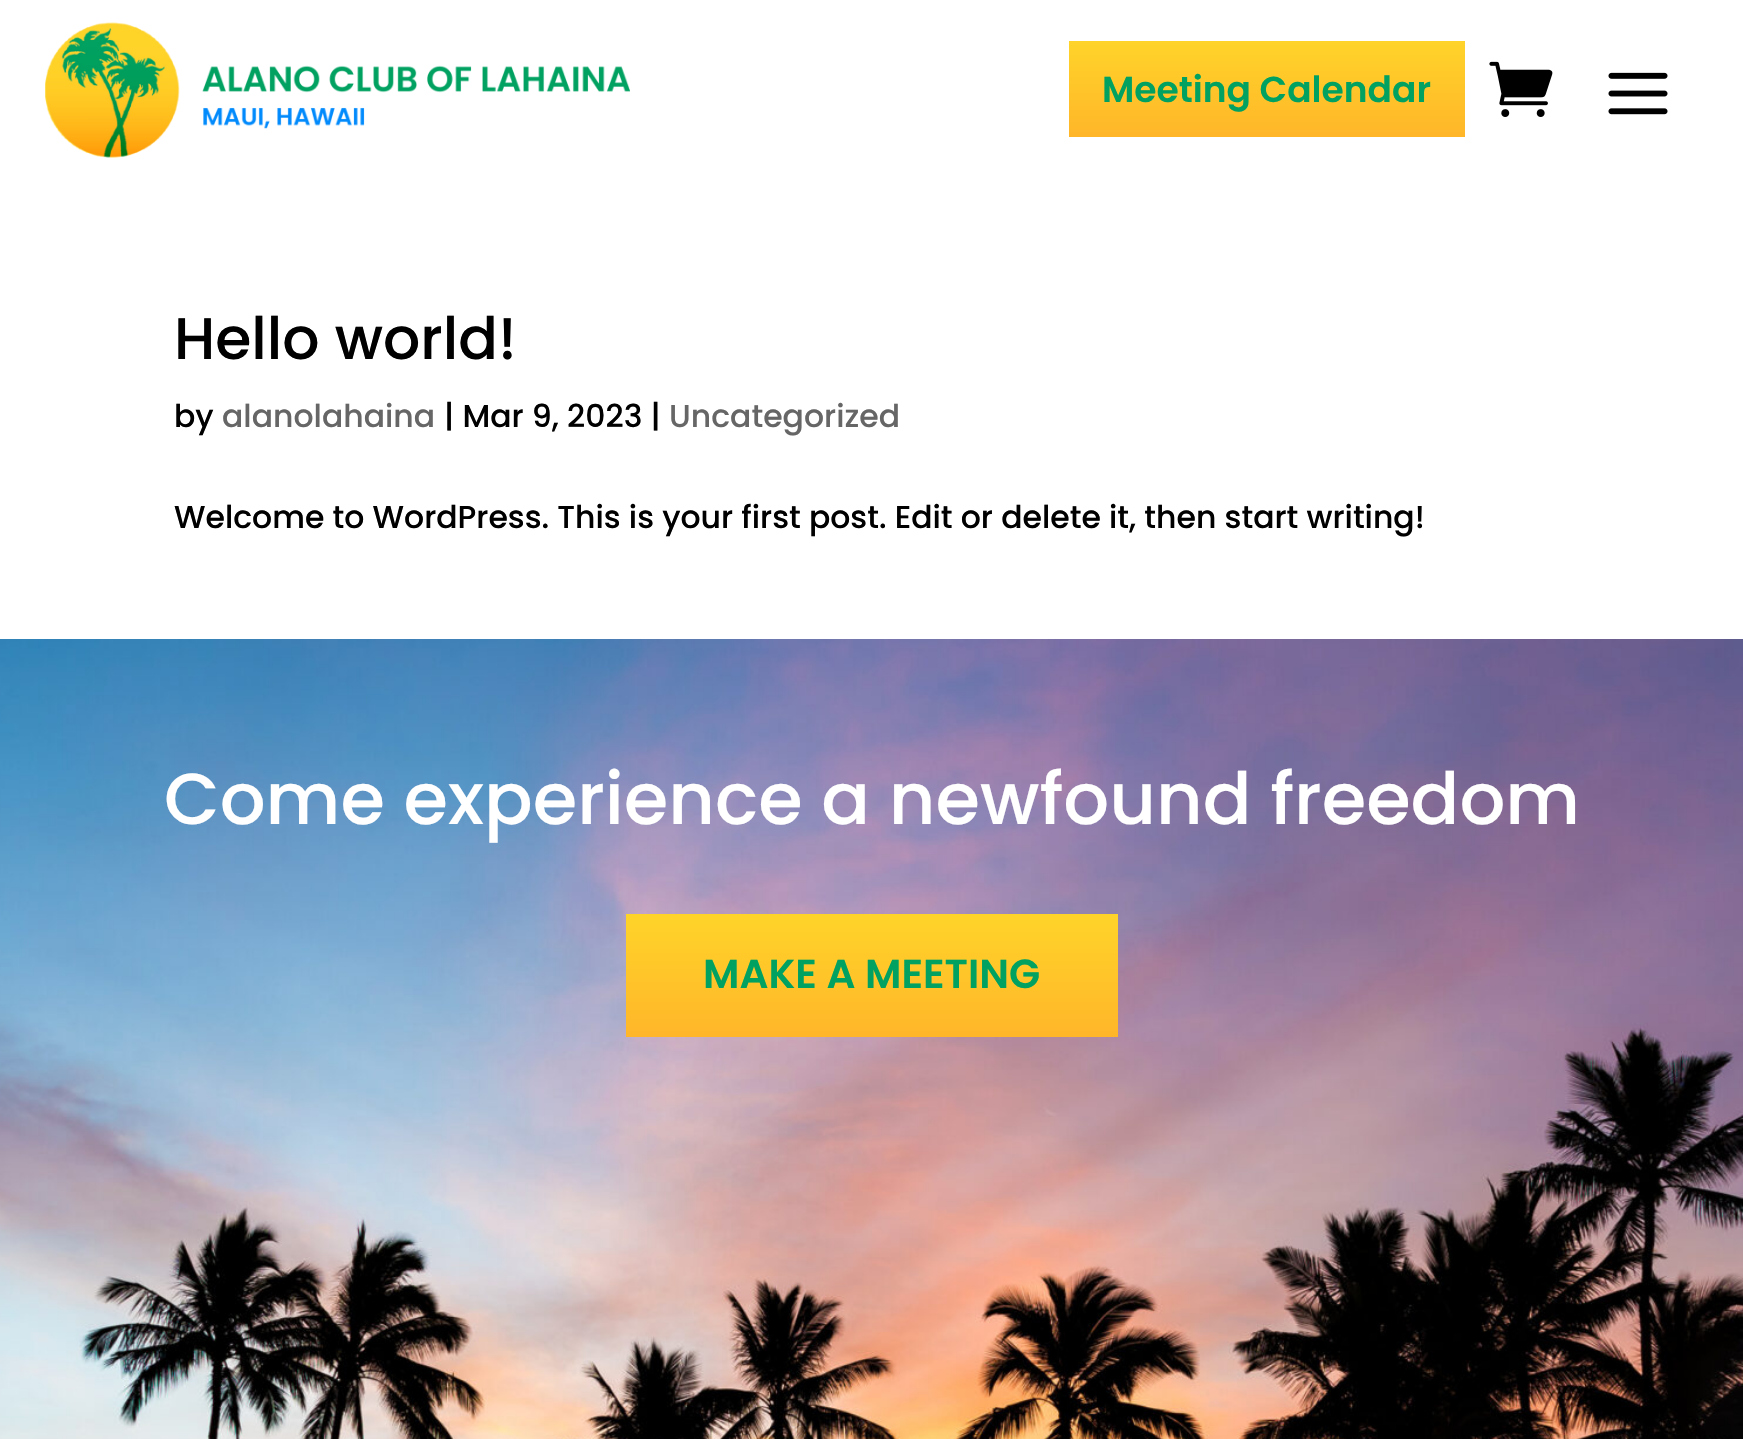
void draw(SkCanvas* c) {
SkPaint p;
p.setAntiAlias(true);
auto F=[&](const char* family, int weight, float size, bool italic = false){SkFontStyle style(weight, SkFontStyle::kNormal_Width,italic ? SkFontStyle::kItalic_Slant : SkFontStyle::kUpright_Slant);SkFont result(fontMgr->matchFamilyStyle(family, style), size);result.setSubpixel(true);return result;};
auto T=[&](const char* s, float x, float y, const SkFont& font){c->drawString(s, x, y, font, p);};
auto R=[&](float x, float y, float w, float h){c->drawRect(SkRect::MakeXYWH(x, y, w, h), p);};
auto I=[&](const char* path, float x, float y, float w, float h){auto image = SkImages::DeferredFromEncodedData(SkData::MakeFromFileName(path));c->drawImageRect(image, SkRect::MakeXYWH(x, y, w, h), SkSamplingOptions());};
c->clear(0xffffffff);
I("1.png",45,22,585,136);
{
const SkColor colors[] = {0xffffd429,0xffffb629};
const float stops[] = {0,1};
const SkPoint ends[] = {{1267,40}, {1267,137}};
p.setShader(SkGradientShader::MakeLinear(ends, colors, stops, 2, SkTileMode::kClamp));
p.setAlpha(255);
}
R(1069,41,396,96);
auto f1 = F("Poppins",600,36);
p.setShader(nullptr);
p.setColor(0xff00a161);
T("Meeting Calendar",1102,102,f1);
I("2.png",1489,61,64,56);
I("3.png",1608,72,60,43);
auto f2 = F("Poppins",500,58.5);
p.setColor(0xff000000);
T("Hello world!",174,359,f2);
auto f3 = F("Poppins",500,31.5);
T("by",174,427,f3);
p.setColor(0xff666666);
T("alanolahaina",222,427,f3);
p.setColor(0xff000000);
T("| Mar 9, 2023 |",444,427,f3);
p.setColor(0xff666666);
T("Uncategorized",669,427,f3);
p.setColor(0xff000000);
T("Welcome to WordPress. This is your first post. Edit or delete it, then start writing!",174,528,f3);
I("4.png",0,639,1743,800);
auto f4 = F("Poppins",500,72);
p.setColor(0xffffffff);
T("Come experience a newfound freedom",164,824,f4);
{
const SkColor colors[] = {0xffffd429,0xffffb629};
const float stops[] = {0,1};
const SkPoint ends[] = {{872,914}, {872,1037}};
p.setShader(SkGradientShader::MakeLinear(ends, colors, stops, 2, SkTileMode::kClamp));
p.setAlpha(255);
}
R(626,914,492,123);
auto f5 = F("Poppins",600,40.5);
p.setShader(nullptr);
p.setColor(0xff00a161);
T("MAKE A MEETING",703,988,f5);
}
